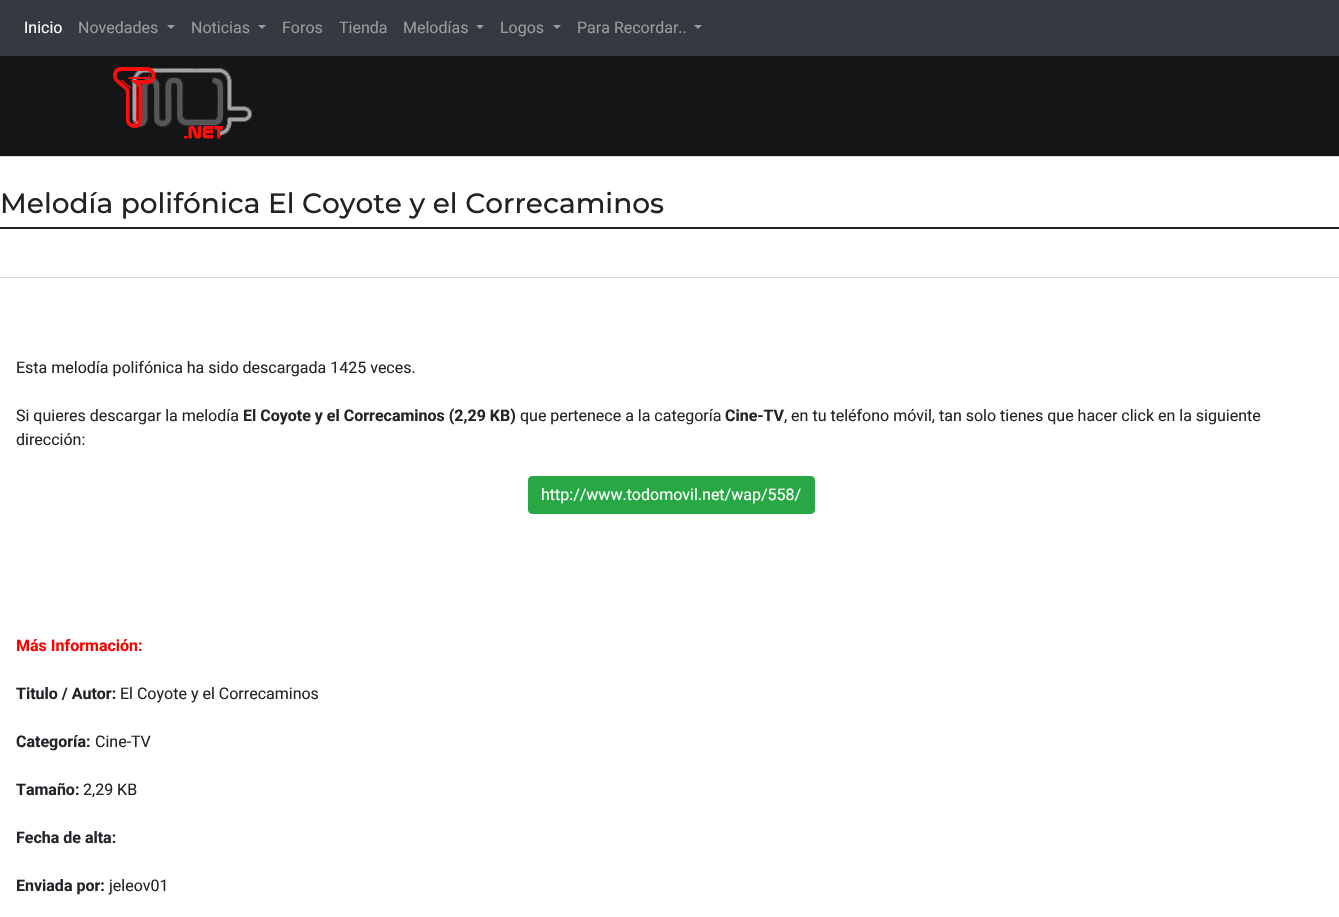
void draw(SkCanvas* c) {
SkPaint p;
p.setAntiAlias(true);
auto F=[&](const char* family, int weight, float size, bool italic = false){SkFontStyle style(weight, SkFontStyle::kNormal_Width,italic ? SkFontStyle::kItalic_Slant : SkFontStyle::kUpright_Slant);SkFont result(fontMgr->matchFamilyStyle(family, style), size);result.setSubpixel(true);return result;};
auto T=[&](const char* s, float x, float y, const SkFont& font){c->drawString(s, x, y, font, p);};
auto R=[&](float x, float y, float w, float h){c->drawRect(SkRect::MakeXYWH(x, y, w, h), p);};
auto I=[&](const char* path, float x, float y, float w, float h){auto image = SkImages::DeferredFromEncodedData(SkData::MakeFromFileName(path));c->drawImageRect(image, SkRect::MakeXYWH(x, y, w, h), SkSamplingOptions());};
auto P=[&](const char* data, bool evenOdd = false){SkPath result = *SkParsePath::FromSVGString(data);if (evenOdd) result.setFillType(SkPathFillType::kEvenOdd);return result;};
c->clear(0xffffffff);
p.setColor(0xff343a40);
R(0,0,1339,56);
auto f1 = F("Roboto",400,16);
p.setColor(0xffffffff);
T("Inicio",24,33,f1);
p.setColor(0xff9a9da0);
T("Novedades",78,33,f1);
c->drawPath(P("M167 25h8l-4 4z"),p);
T("Noticias",191,33,f1);
c->drawPath(P("M258 25h8l-4 4z"),p);
T("Foros",282,33,f1);
T("Tienda",339,33,f1);
T("Melodías",403,33,f1);
c->drawPath(P("M476 25h8l-4 4z"),p);
T("Logos",500,33,f1);
c->drawPath(P("M553 25h8l-4 4z"),p);
T("Para Recordar..",577,33,f1);
c->drawPath(P("M694 25h8l-4 4z"),p);
p.setColor(0xff141517);
R(0,56,1339,100);
I("1.png",113,67,140,72);
p.setColor(0xffd5d5d5);
R(0,156,1339,1);
R(0,277,1339,1);
p.setColor(0xff222222);
R(0,227,1339,2);
auto f2 = F("Montserrat",500,28);
T("Melodía polifónica El Coyote y el Correcaminos",0,213,f2);
p.setColor(0xff212529);
T("Esta melodía polifónica ha sido descargada 1425 veces.",16,373,f1);
T("Si quieres descargar la melodía",16,421,f1);
auto f3 = F("Roboto",700,16);
T("El Coyote y el Correcaminos (2,29 KB)",243,421,f3);
T("que pertenece a la categoría",520,421,f1);
T("Cine-TV",725,421,f3);
T(", en tu teléfono móvil, tan solo tienes que hacer click en la siguiente",784,421,f1);
T("dirección:",16,445,f1);
p.setColor(0xff28a745);
c->drawRoundRect(SkRect::MakeXYWH(528.5,476.5,286,37),3.5,3.5,p);
p.setStroke(true);
p.setStrokeWidth(1);
c->drawRoundRect(SkRect::MakeXYWH(528.5,476.5,286,37),3.5,3.5,p);
p.setStroke(false);
p.setColor(0xffffffff);
T("http://www.todomovil.net/wap/558/",541,500,f1);
p.setColor(0xffff0000);
T("Más Información:",16,651,f3);
p.setColor(0xff212529);
T("Titulo / Autor:",16,699,f3);
T("El Coyote y el Correcaminos",120,699,f1);
T("Categoría:",16,747,f3);
T("Cine-TV",95,747,f1);
T("Tamaño:",16,795,f3);
T("2,29 KB",83,795,f1);
T("Fecha de alta:",16,843,f3);
T("Enviada por:",16,891,f3);
T("jeleov01",109,891,f1);
}
